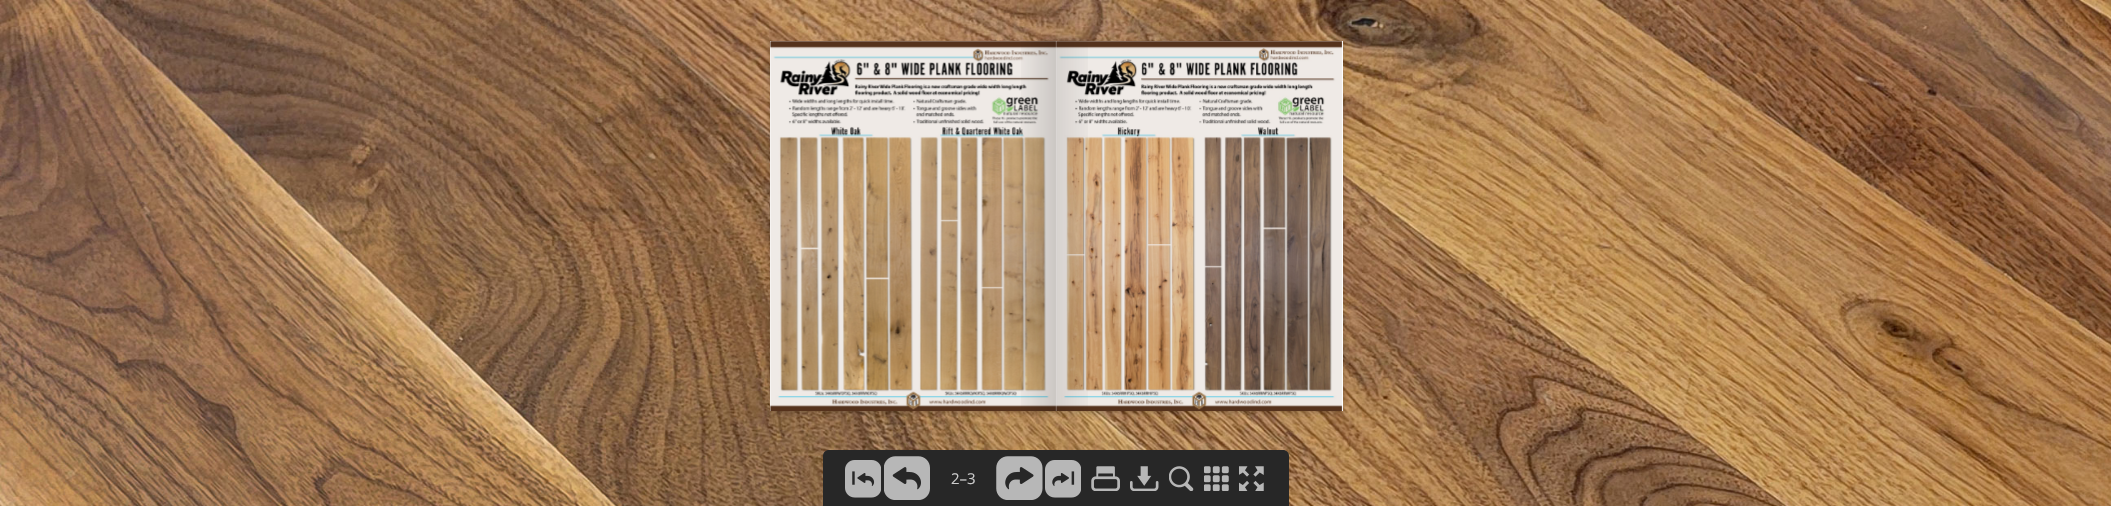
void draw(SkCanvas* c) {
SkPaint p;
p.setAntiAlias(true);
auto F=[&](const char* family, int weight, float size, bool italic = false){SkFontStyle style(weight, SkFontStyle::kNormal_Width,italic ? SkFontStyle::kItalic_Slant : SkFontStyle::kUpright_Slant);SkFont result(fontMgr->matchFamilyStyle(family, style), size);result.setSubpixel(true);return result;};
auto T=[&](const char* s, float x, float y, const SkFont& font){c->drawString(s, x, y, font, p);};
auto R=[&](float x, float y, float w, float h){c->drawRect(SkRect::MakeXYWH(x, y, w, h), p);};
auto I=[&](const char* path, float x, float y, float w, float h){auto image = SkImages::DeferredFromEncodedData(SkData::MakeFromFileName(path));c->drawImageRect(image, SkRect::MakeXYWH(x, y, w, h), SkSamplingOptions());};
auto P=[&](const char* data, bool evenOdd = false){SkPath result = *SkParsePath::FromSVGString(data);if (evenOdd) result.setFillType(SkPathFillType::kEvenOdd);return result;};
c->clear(0xffffffff);
I("1.png",0,0,2111,506);
p.setColor(0x33000000);
p.setMaskFilter(SkMaskFilter::MakeBlur(kNormal_SkBlurStyle, 2.5));
c->drawRect(SkRect::MakeXYWH(770,43,573,370),p);
p.setMaskFilter(nullptr);
p.setColor(0xffffffff);
R(770,41,573,370);
I("2.png",770,41,286,371);
{
const SkColor colors[] = {0x00000000,0x26000000};
const float stops[] = {0,1};
const SkPoint ends[] = {{1015,226}, {1056,226}};
p.setShader(SkGradientShader::MakeLinear(ends, colors, stops, 2, SkTileMode::kClamp));
p.setAlpha(255);
}
R(1021,41,35,370);
I("3.png",1056,41,287,371);
{
const SkColor colors[] = {0x1a000000,0x00000000};
const float stops[] = {0,1};
const SkPoint ends[] = {{1056,226}, {1097,226}};
p.setShader(SkGradientShader::MakeLinear(ends, colors, stops, 2, SkTileMode::kClamp));
p.setAlpha(255);
}
R(1056,41,32,370);
p.setShader(nullptr);
p.setColor(0xff272727);
c->drawPath(P("M829 450h454c3.5 0 6 2.5 6 6v50h-466v-50c0-3.5 2.5-6 6-6z"),p);
I("4.png",845,460,36,38);
I("5.png",884,456,46,44);
auto f1 = F("Open Sans",400,15);
p.setColor(0xffcccccc);
T("2–3",951,484,f1);
I("6.png",996,456,47,44);
I("7.png",1045,460,36,38);
I("8.png",1091,466,29,25);
I("9.png",1130,466,29,25);
I("10.png",1169,466,25,25);
I("11.png",1204,466,25,25);
I("12.png",1239,466,25,25);
}
